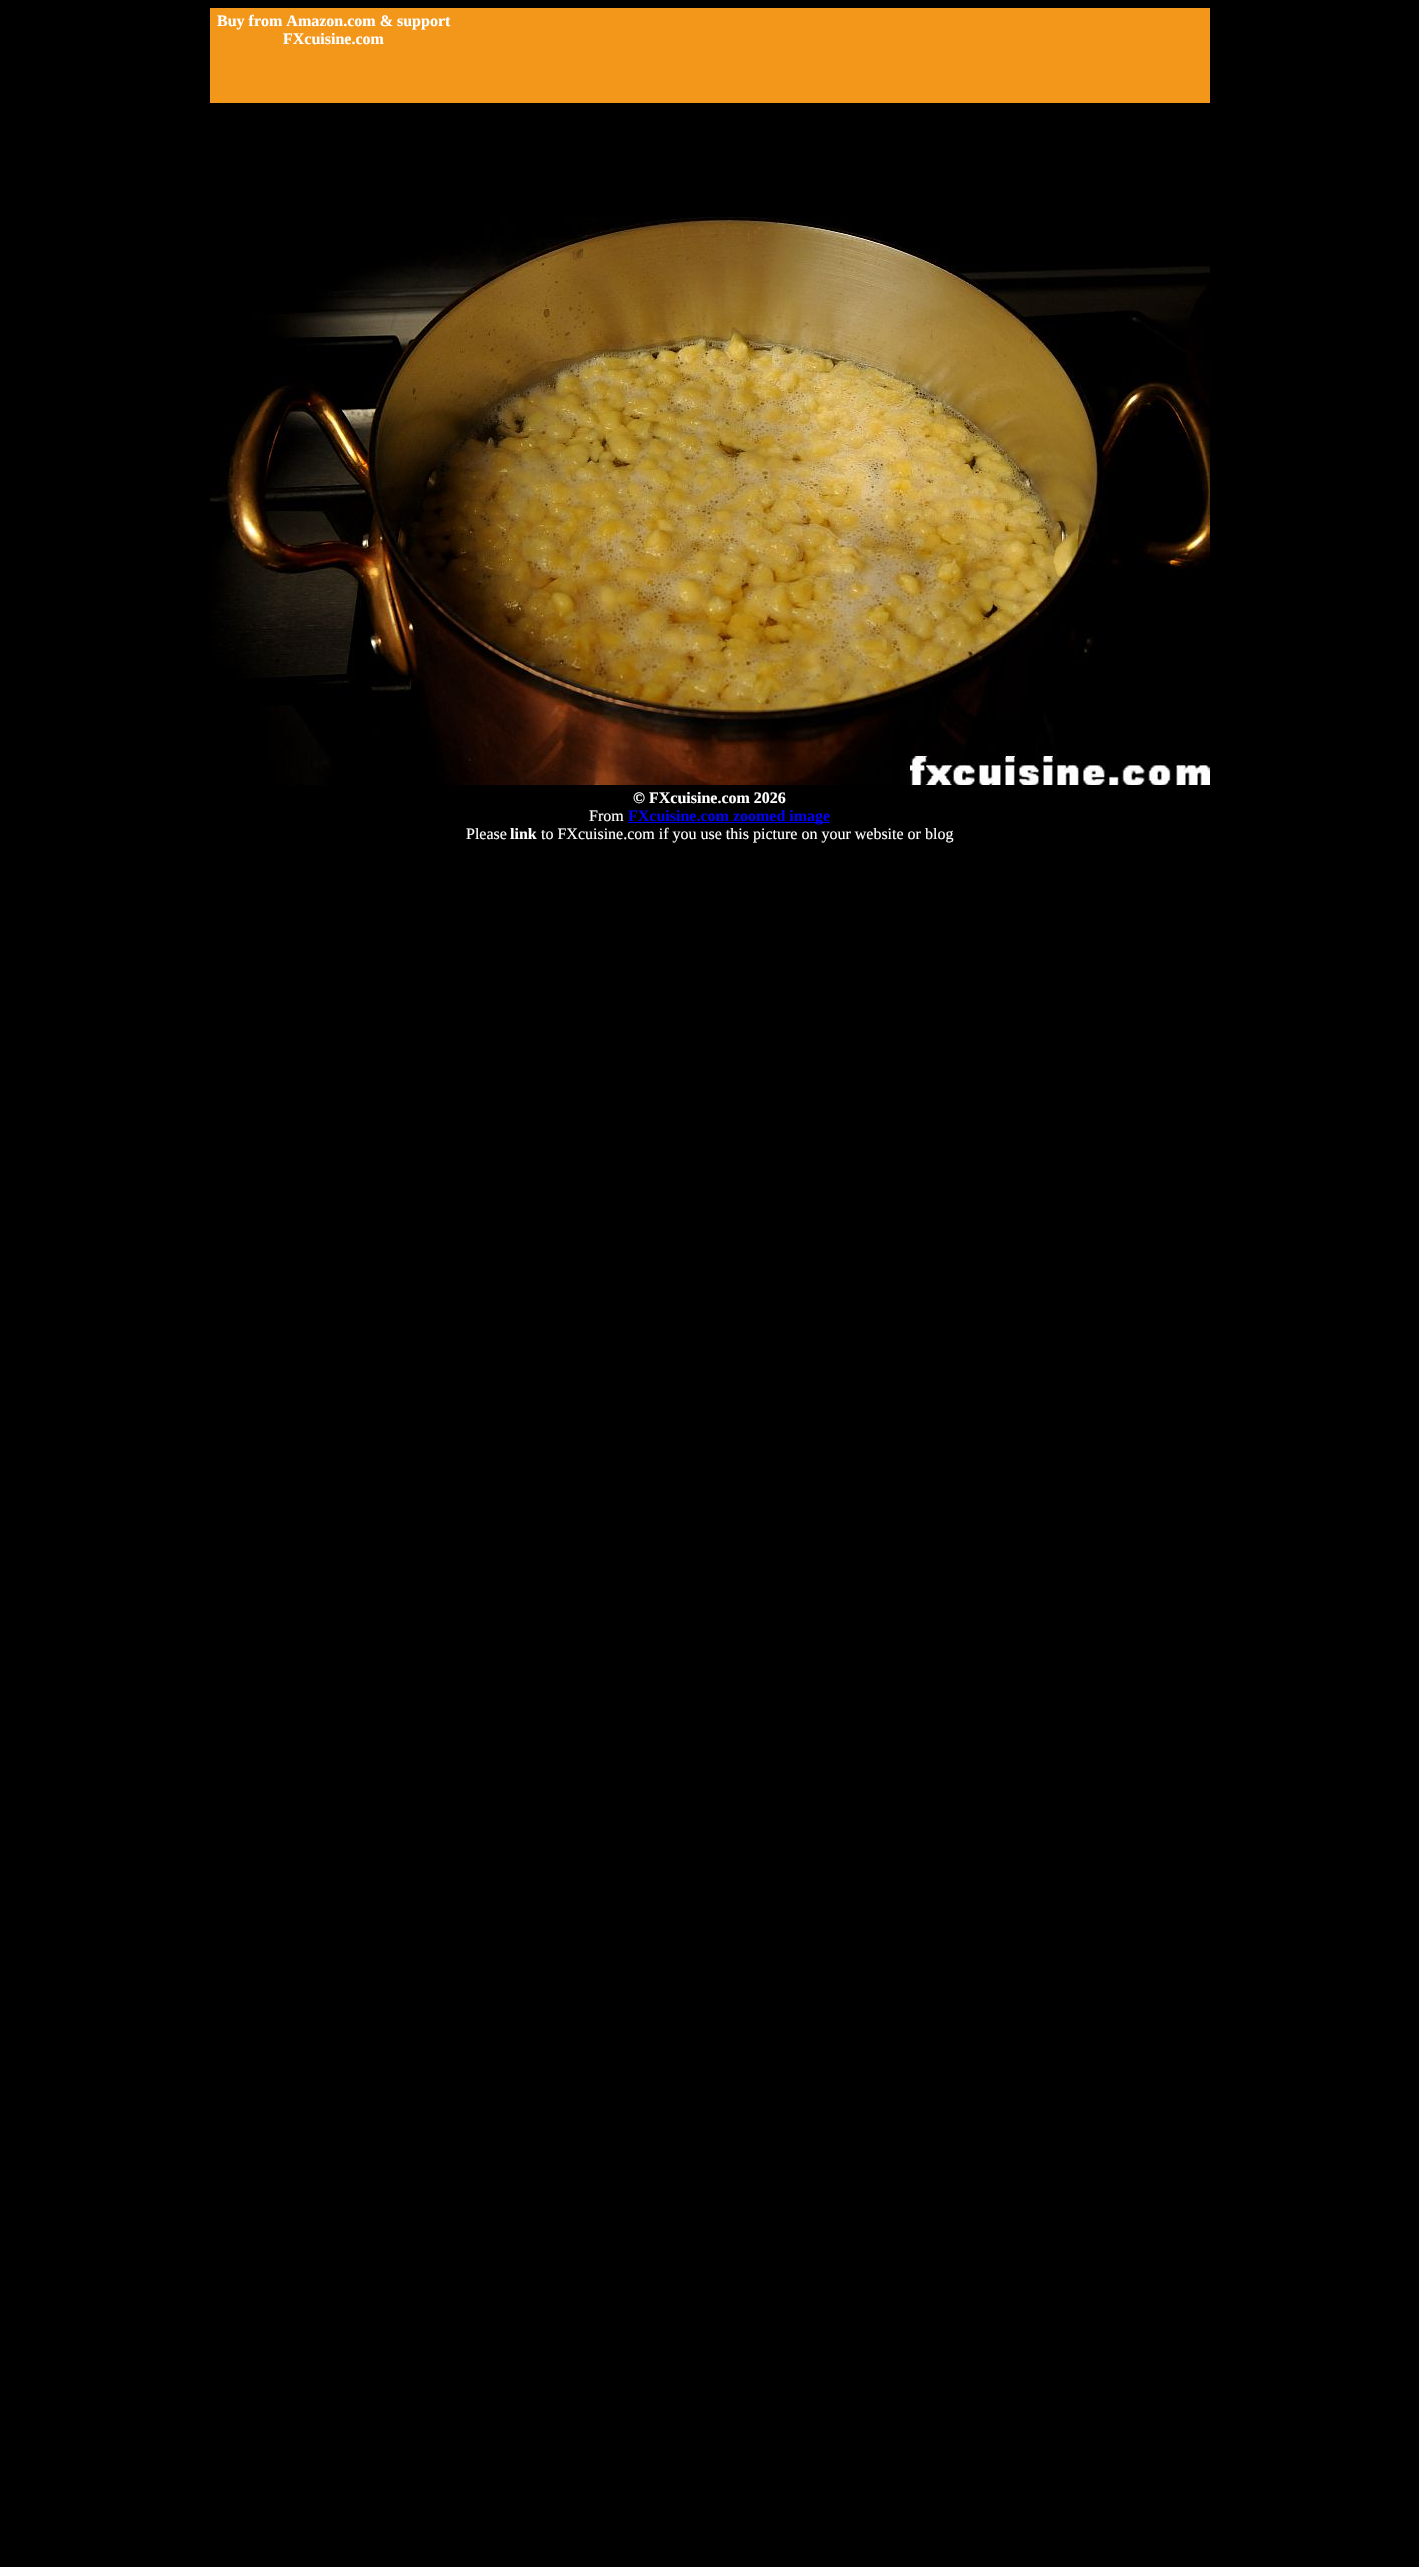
void draw(SkCanvas* c) {
SkPaint p;
p.setAntiAlias(true);
auto F=[&](const char* family, int weight, float size, bool italic = false){SkFontStyle style(weight, SkFontStyle::kNormal_Width,italic ? SkFontStyle::kItalic_Slant : SkFontStyle::kUpright_Slant);SkFont result(fontMgr->matchFamilyStyle(family, style), size);result.setSubpixel(true);return result;};
auto T=[&](const char* s, float x, float y, const SkFont& font){c->drawString(s, x, y, font, p);};
auto R=[&](float x, float y, float w, float h){c->drawRect(SkRect::MakeXYWH(x, y, w, h), p);};
auto I=[&](const char* path, float x, float y, float w, float h){auto image = SkImages::DeferredFromEncodedData(SkData::MakeFromFileName(path));c->drawImageRect(image, SkRect::MakeXYWH(x, y, w, h), SkSamplingOptions());};
c->clear(0xff000000);
p.setColor(0xfff3971a);
R(210,8,1000,95);
auto f1 = F("Liberation Serif",700,16);
p.setColor(0xffffffff);
T("Buy from Amazon.com & support",217,26,f1);
T("FXcuisine.com",283,44,f1);
I("1.png",210,217,1000,568);
T("© FXcuisine.com 2026",633,803,f1);
auto f2 = F("Liberation Serif",400,16);
T("From",589,821,f2);
p.setColor(0xff0000ee);
R(628,822,202,1);
T("FXcuisine.com zoomed image",628,821,f1);
p.setColor(0xffffffff);
T("Please",466,839,f2);
T("link",510,839,f1);
T("to FXcuisine.com if you use this picture on your website or blog",541,839,f2);
}
